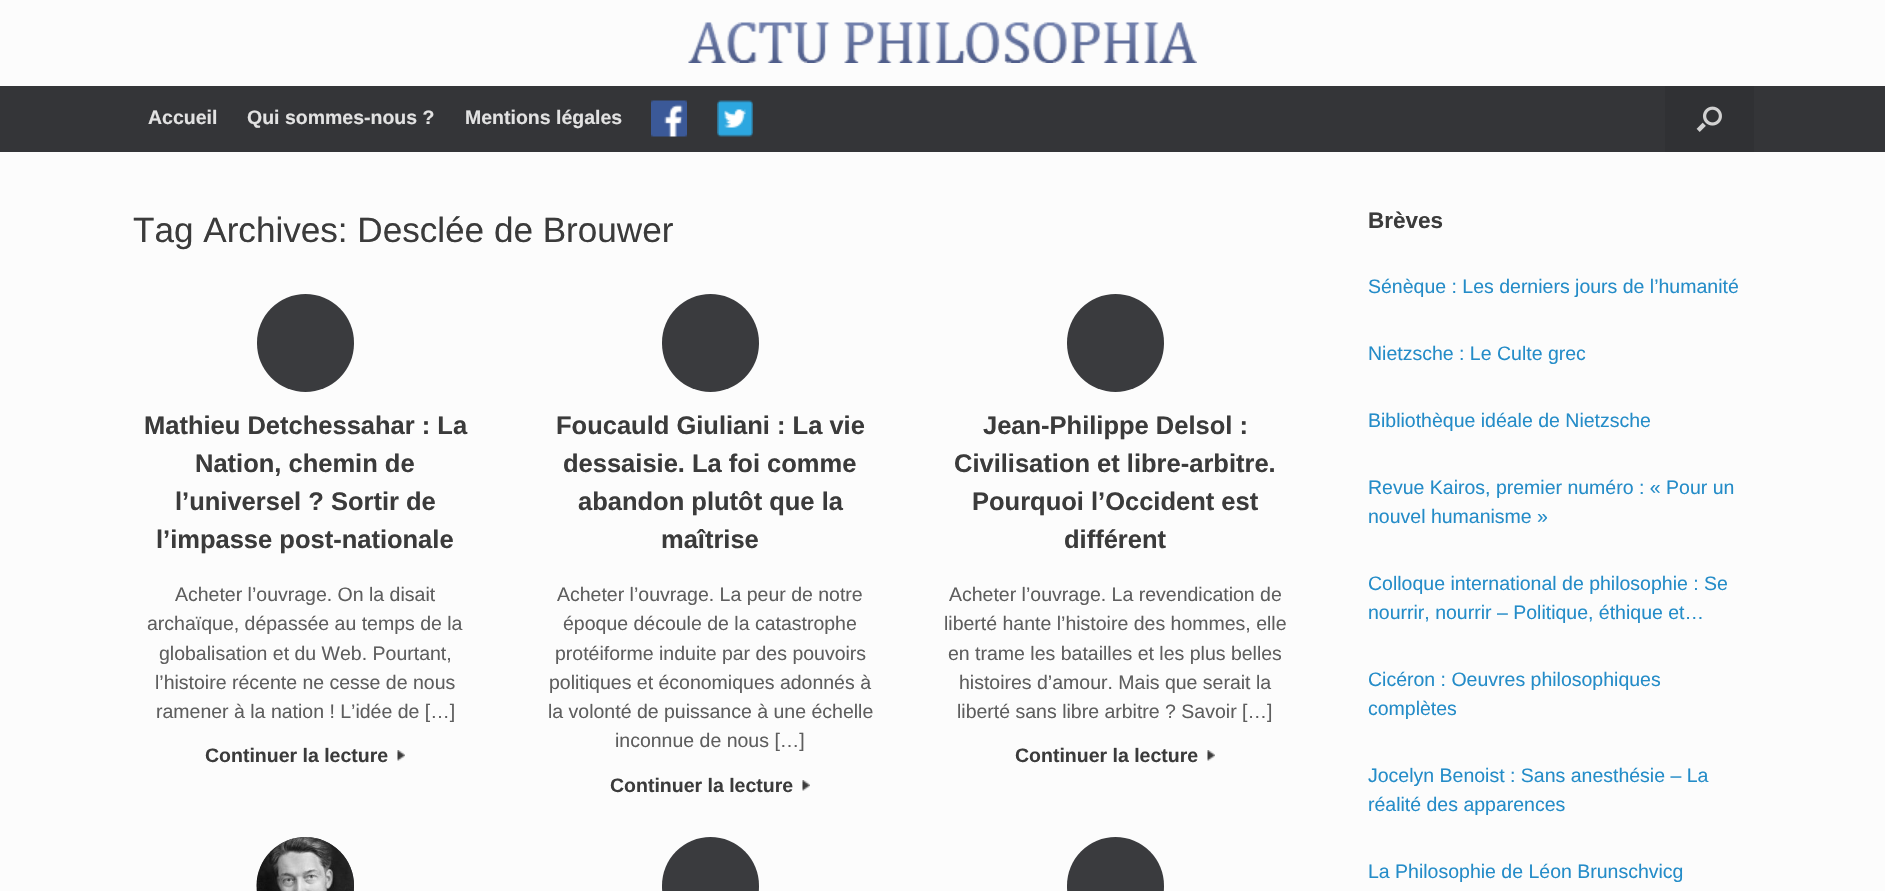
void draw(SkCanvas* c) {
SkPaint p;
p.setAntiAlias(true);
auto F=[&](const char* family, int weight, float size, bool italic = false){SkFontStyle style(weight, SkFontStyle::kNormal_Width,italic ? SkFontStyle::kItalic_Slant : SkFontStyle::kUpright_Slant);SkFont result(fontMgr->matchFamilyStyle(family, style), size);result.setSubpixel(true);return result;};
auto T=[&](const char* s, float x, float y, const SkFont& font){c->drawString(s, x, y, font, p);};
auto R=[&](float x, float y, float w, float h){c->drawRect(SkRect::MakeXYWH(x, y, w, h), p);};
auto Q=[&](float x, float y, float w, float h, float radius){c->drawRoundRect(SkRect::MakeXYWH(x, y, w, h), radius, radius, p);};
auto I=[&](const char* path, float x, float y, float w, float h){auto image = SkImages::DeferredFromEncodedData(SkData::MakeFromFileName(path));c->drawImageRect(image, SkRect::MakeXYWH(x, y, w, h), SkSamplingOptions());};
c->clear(0xfffcfcfc);
I("1.png",688,22,509,41);
p.setColor(0xff343538);
R(0,86,1885,66);
auto f1 = F("Liberation Sans",700,19.5);
p.setColor(0xffe2e2e2);
T("Accueil",148,124,f1);
T("Qui sommes-nous ?",247,124,f1);
T("Mentions légales",465,124,f1);
I("2.png",651,100,36,37);
I("3.png",717,100,36,37);
p.setColor(0xff303134);
R(1665,86,89,66);
I("4.png",1696,106,26,26);
auto f2 = F("Liberation Sans",400,35.1);
p.setColor(0xff3b3b3b);
T("Tag Archives: Desclée de Brouwer",133,242,f2);
p.setColor(0xff3a3b3e);
Q(257,294,97,98,48.5);
auto f3 = F("Liberation Sans",700,25.5);
p.setColor(0xff3b3b3b);
T("Mathieu Detchessahar : La",144,434,f3);
T("Nation, chemin de",195,472,f3);
T("l’universel ? Sortir de",175,510,f3);
T("l’impasse post-nationale",156,548,f3);
auto f4 = F("Liberation Sans",400,19.5);
p.setColor(0xff5e5e5e);
T("Acheter l’ouvrage. On la disait",175,601,f4);
T("archaïque, dépassée au temps de la",147,630,f4);
T("globalisation et du Web. Pourtant,",159,660,f4);
T("l’histoire récente ne cesse de nous",155,689,f4);
T("ramener à la nation ! L’idée de […]",156,718,f4);
p.setColor(0xff3b3b3b);
T("Continuer la lecture",205,762,f1);
I("5.png",397,750,8,11);
p.setColor(0xff3a3b3e);
Q(662,294,97,98,48.5);
p.setColor(0xff3b3b3b);
T("Foucauld Giuliani : La vie",556,434,f3);
T("dessaisie. La foi comme",563,472,f3);
T("abandon plutôt que la",578,510,f3);
T("maîtrise",661,548,f3);
p.setColor(0xff5e5e5e);
T("Acheter l’ouvrage. La peur de notre",557,601,f4);
T("époque découle de la catastrophe",563,630,f4);
T("protéiforme induite par des pouvoirs",555,660,f4);
T("politiques et économiques adonnés à",549,689,f4);
T("la volonté de puissance à une échelle",548,718,f4);
T("inconnue de nous […]",615,747,f4);
p.setColor(0xff3b3b3b);
T("Continuer la lecture",610,792,f1);
I("6.png",802,780,8,11);
p.setColor(0xff3a3b3e);
Q(1067,294,97,98,48.5);
p.setColor(0xff3b3b3b);
T("Jean-Philippe Delsol :",983,434,f3);
T("Civilisation et libre-arbitre.",954,472,f3);
T("Pourquoi l’Occident est",972,510,f3);
T("différent",1064,548,f3);
p.setColor(0xff5e5e5e);
T("Acheter l’ouvrage. La revendication de",949,601,f4);
T("liberté hante l’histoire des hommes, elle",944,630,f4);
T("en trame les batailles et les plus belles",948,660,f4);
T("histoires d’amour. Mais que serait la",959,689,f4);
T("liberté sans libre arbitre ? Savoir […]",957,718,f4);
p.setColor(0xff3b3b3b);
T("Continuer la lecture",1015,762,f1);
I("6.png",1207,750,8,11);
p.setColor(0xff3a3b3e);
Q(257,837,97,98,48.5);
I("7.png",256,837,98,54);
Q(662,837,97,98,48.5);
Q(1067,837,97,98,48.5);
auto f5 = F("Liberation Sans",700,22.5);
p.setColor(0xff3b3b3b);
T("Brèves",1368,228,f5);
p.setColor(0xff248cc8);
T("Sénèque : Les derniers jours de l’humanité",1368,293,f4);
T("Nietzsche : Le Culte grec",1368,360,f4);
T("Bibliothèque idéale de Nietzsche",1368,427,f4);
T("Revue Kairos, premier numéro : « Pour un",1368,494,f4);
T("nouvel humanisme »",1368,523,f4);
T("Colloque international de philosophie : Se",1368,590,f4);
T("nourrir, nourrir – Politique, éthique et…",1368,619,f4);
T("Cicéron : Oeuvres philosophiques",1368,686,f4);
T("complètes",1368,715,f4);
T("Jocelyn Benoist : Sans anesthésie – La",1368,782,f4);
T("réalité des apparences",1368,811,f4);
T("La Philosophie de Léon Brunschvicg",1368,878,f4);
}
